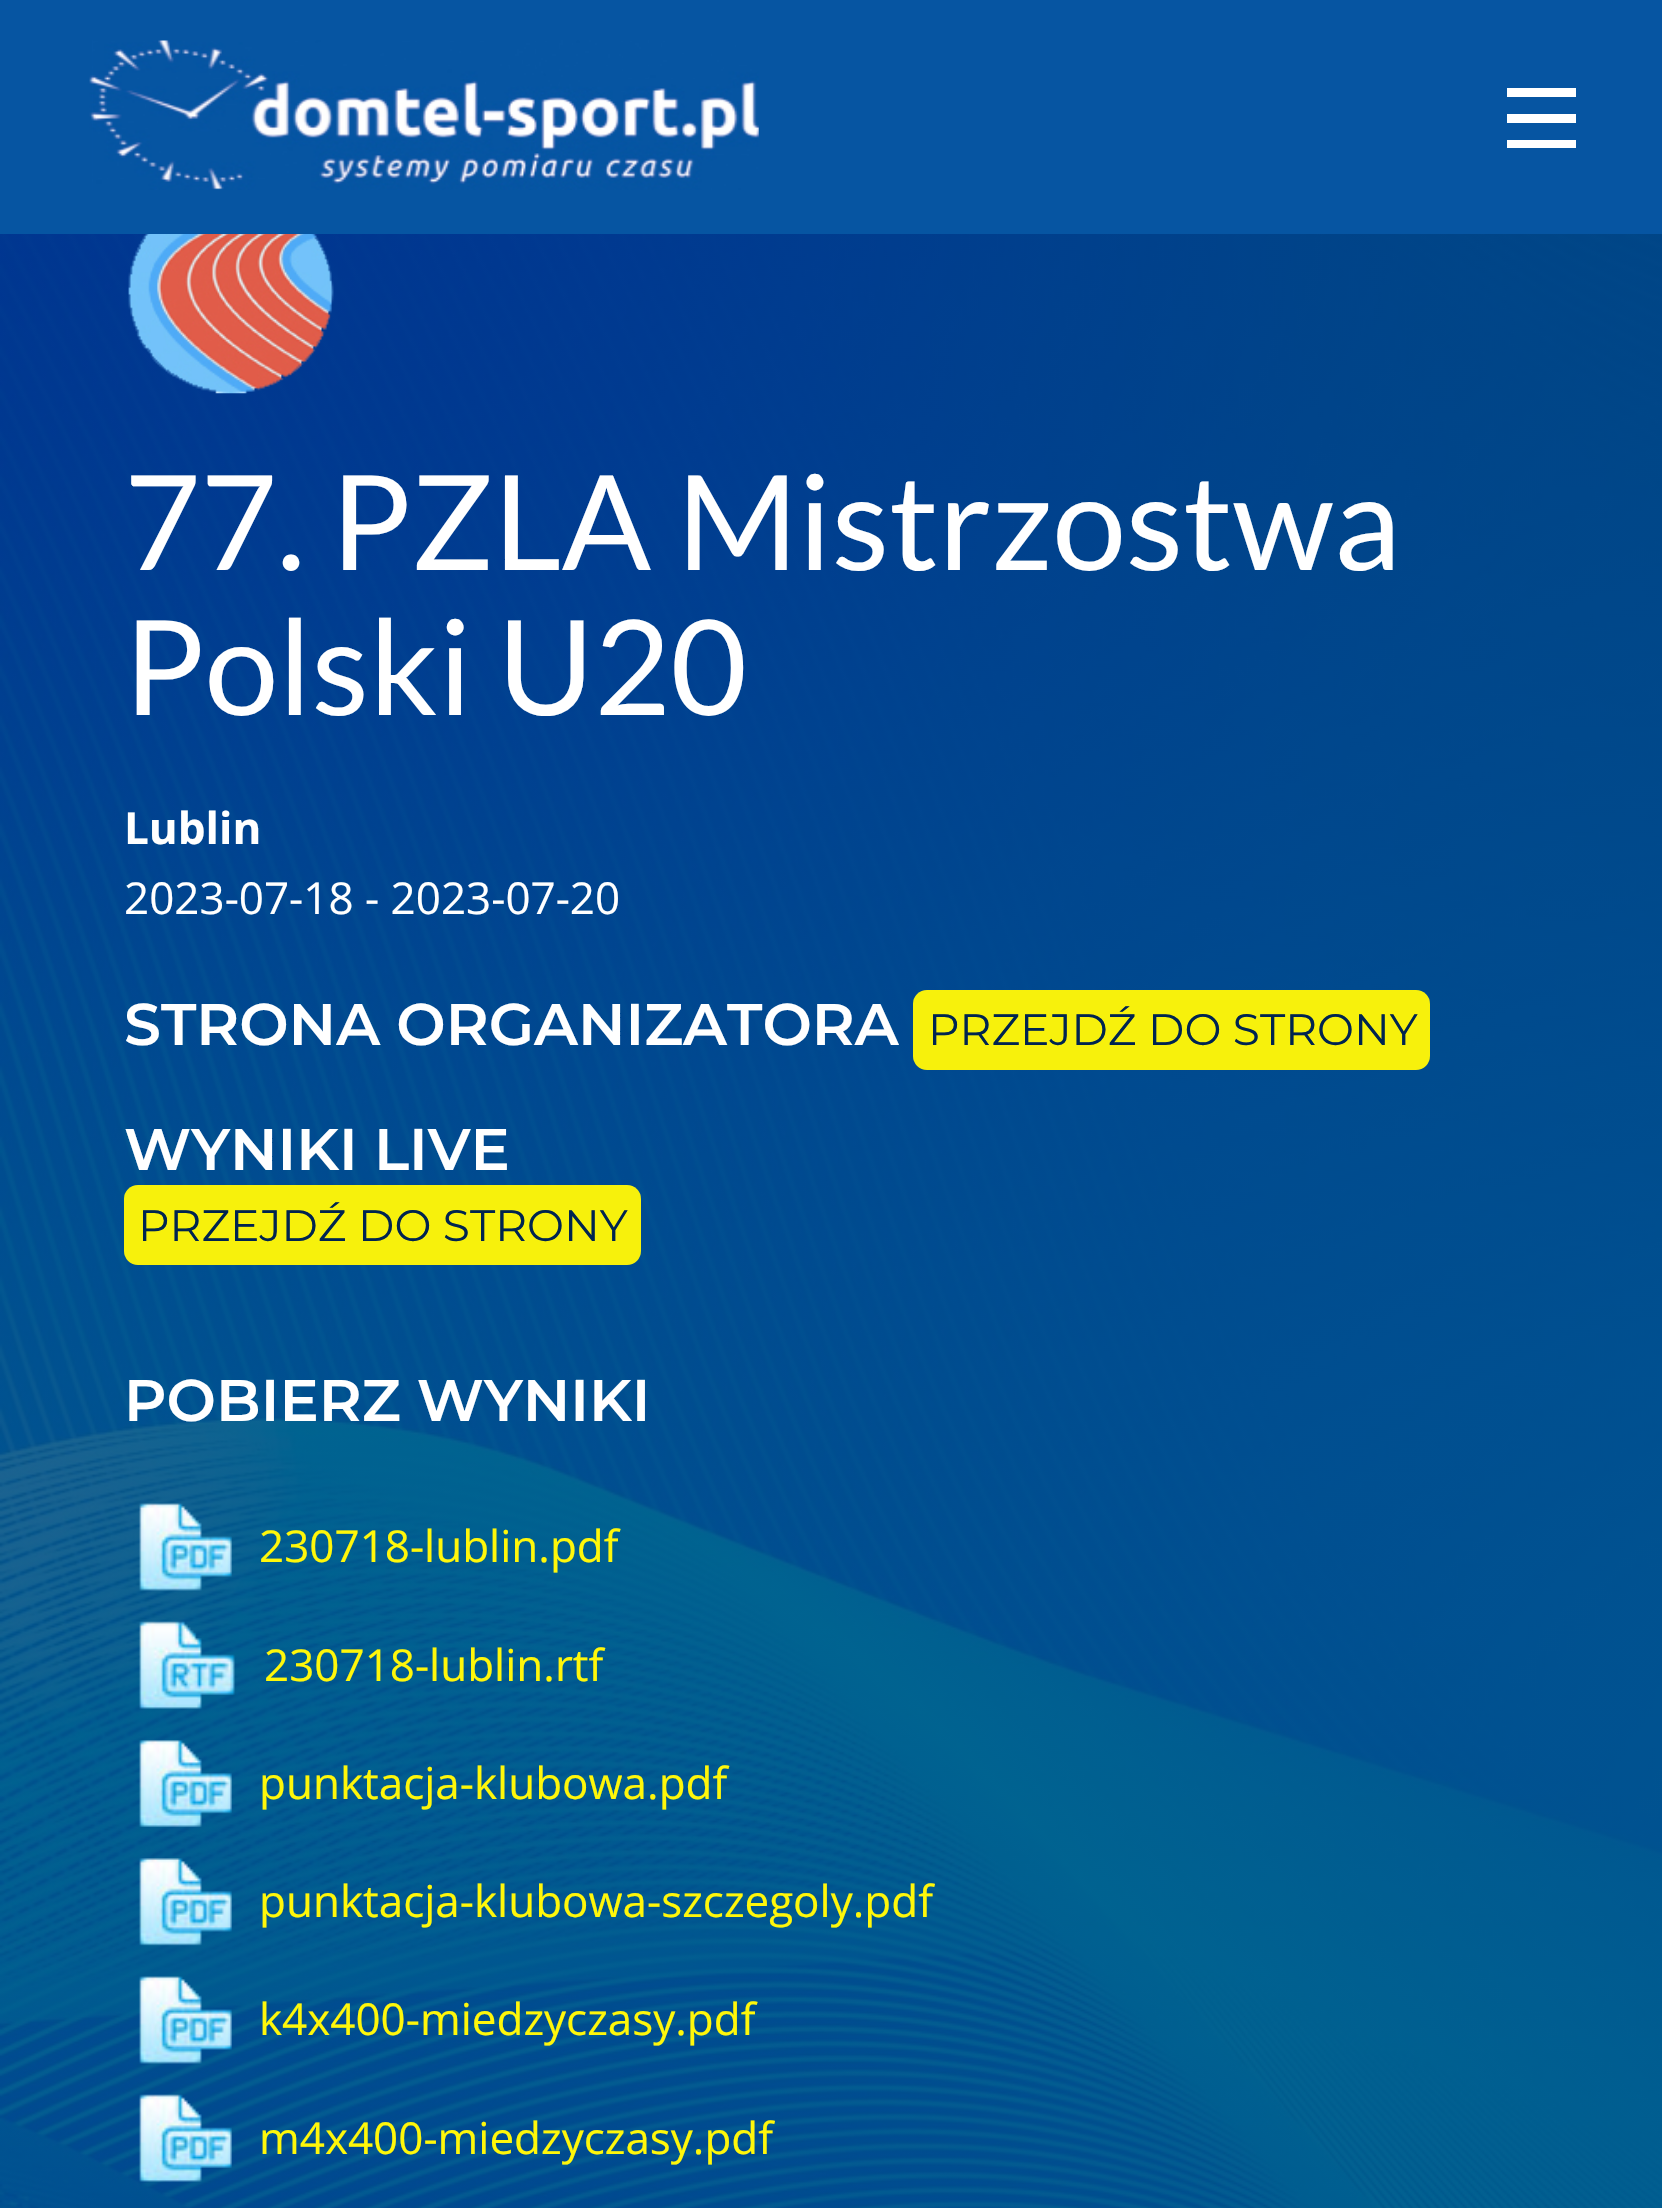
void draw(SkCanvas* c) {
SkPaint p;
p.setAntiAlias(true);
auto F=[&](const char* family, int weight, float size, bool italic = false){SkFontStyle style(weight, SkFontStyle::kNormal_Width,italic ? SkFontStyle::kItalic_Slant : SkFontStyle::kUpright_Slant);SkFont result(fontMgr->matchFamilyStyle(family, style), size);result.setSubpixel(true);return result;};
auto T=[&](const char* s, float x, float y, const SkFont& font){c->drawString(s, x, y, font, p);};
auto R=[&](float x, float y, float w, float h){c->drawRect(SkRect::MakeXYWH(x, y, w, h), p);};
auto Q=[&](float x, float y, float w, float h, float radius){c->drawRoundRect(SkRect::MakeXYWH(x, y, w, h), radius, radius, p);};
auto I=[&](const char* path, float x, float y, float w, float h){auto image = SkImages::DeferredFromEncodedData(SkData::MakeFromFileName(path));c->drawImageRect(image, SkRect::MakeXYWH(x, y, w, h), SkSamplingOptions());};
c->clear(0xffffffff);
p.setColor(0xff0655a2);
R(0,0,1662,234);
I("1.png",89,40,670,150);
p.setColor(0xffffffff);
R(1507,88,69,9);
R(1507,114,69,9);
R(1507,140,69,8);
I("2.png",0,234,1662,1974);
I("3.png",128,234,206,160);
auto f1 = F("Lato",400,132);
T("77. PZLA Mistrzostwa",124,570,f1);
T("Polski U20",124,715,f1);
auto f2 = F("Open Sans",700,44);
T("Lublin",124,844,f2);
auto f3 = F("Open Sans",400,44);
T("2023-07-18 - 2023-07-20",124,914,f3);
auto f4 = F("Montserrat",600,58.7);
T("STRONA ORGANIZATORA",124,1045,f4);
p.setColor(0xfff7f10c);
Q(913,990,517,80,14);
auto f5 = F("Montserrat",400,44);
p.setColor(0xff002450);
T("PRZEJDŹ DO STRONY",928,1045,f5);
p.setColor(0xffffffff);
T("WYNIKI LIVE",124,1170,f4);
p.setColor(0xfff7f10c);
Q(124,1185,517,80,14);
p.setColor(0xff002450);
T("PRZEJDŹ DO STRONY",138,1241,f5);
p.setColor(0xffffffff);
T("POBIERZ WYNIKI",124,1421,f4);
I("4.png",139,1503,93,88);
p.setColor(0xfffff70a);
T("230718-lublin.pdf",259,1562,f3);
I("5.png",139,1621,96,88);
T("230718-lublin.rtf",264,1681,f3);
I("6.png",139,1740,93,87);
T("punktacja-klubowa.pdf",259,1799,f3);
I("7.png",139,1858,93,88);
T("punktacja-klubowa-szczegoly.pdf",259,1917,f3);
I("8.png",139,1976,93,88);
T("k4x400-miedzyczasy.pdf",259,2035,f3);
I("9.png",139,2094,93,88);
T("m4x400-miedzyczasy.pdf",259,2154,f3);
}
